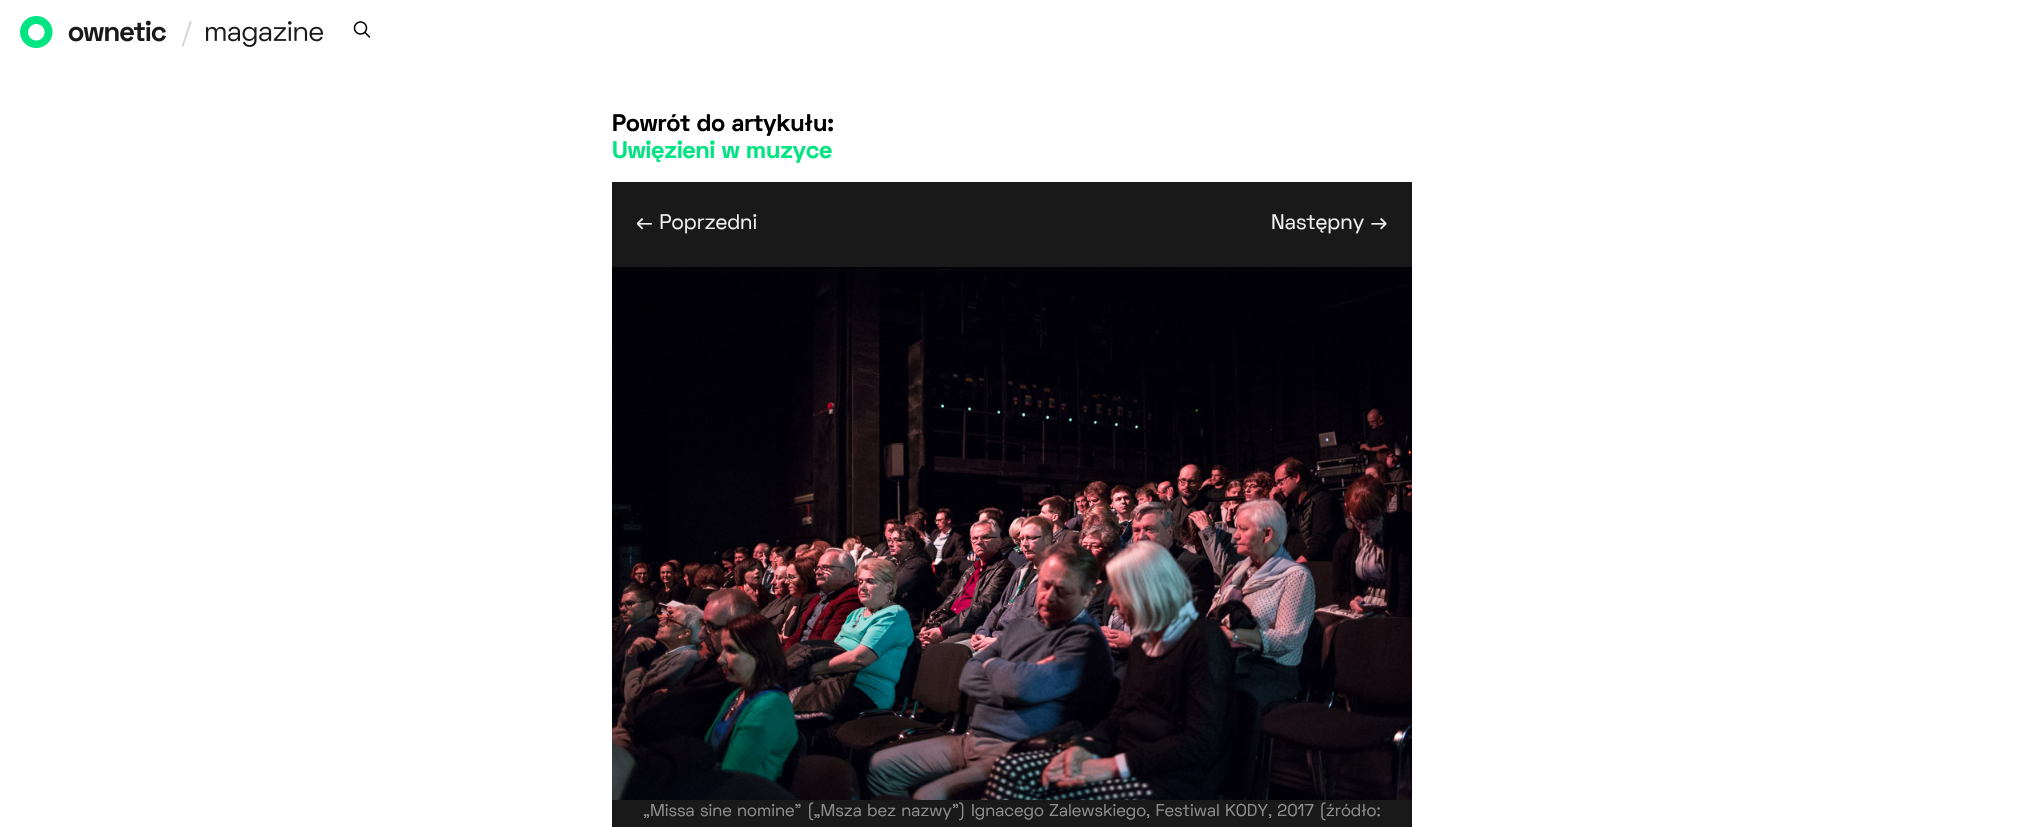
void draw(SkCanvas* c) {
SkPaint p;
p.setAntiAlias(true);
auto F=[&](const char* family, int weight, float size, bool italic = false){SkFontStyle style(weight, SkFontStyle::kNormal_Width,italic ? SkFontStyle::kItalic_Slant : SkFontStyle::kUpright_Slant);SkFont result(fontMgr->matchFamilyStyle(family, style), size);result.setSubpixel(true);return result;};
auto T=[&](const char* s, float x, float y, const SkFont& font){c->drawString(s, x, y, font, p);};
auto R=[&](float x, float y, float w, float h){c->drawRect(SkRect::MakeXYWH(x, y, w, h), p);};
auto I=[&](const char* path, float x, float y, float w, float h){auto image = SkImages::DeferredFromEncodedData(SkData::MakeFromFileName(path));c->drawImageRect(image, SkRect::MakeXYWH(x, y, w, h), SkSamplingOptions());};
auto P=[&](const char* data, bool evenOdd = false){SkPath result = *SkParsePath::FromSVGString(data);if (evenOdd) result.setFillType(SkPathFillType::kEvenOdd);return result;};
c->clear(0xffffffff);
I("1.png",20,16,146,32);
p.setColor(0xffd8d8d8);
c->drawPath(P("M192 21.5l-8.5 25h-2l8-25z"),p);
I("2.png",206,21,117,26);
I("3.png",353,21,18,17);
auto f1 = F("Space Grotesk",700,24);
p.setColor(0xff000000);
T("Powrót do artykułu:",612,131,f1);
p.setColor(0xff00e481);
T("Uwięzieni w muzyce",612,158,f1);
p.setColor(0xff191919);
R(612,182,800,645);
auto f2 = F("Space Grotesk",400,21);
p.setColor(0xfff1f1f1);
T("← Poprzedni",636,229,f2);
T("Następny →",1271,229,f2);
I("4.png",612,267,800,533);
auto f3 = F("Space Grotesk",400,17);
p.setColor(0xff8e8e8e);
T("„Missa sine nomine” („Msza bez nazwy”) Ignacego Zalewskiego, Festiwal KODY, 2017 (źródło:",643,816,f3);
}
